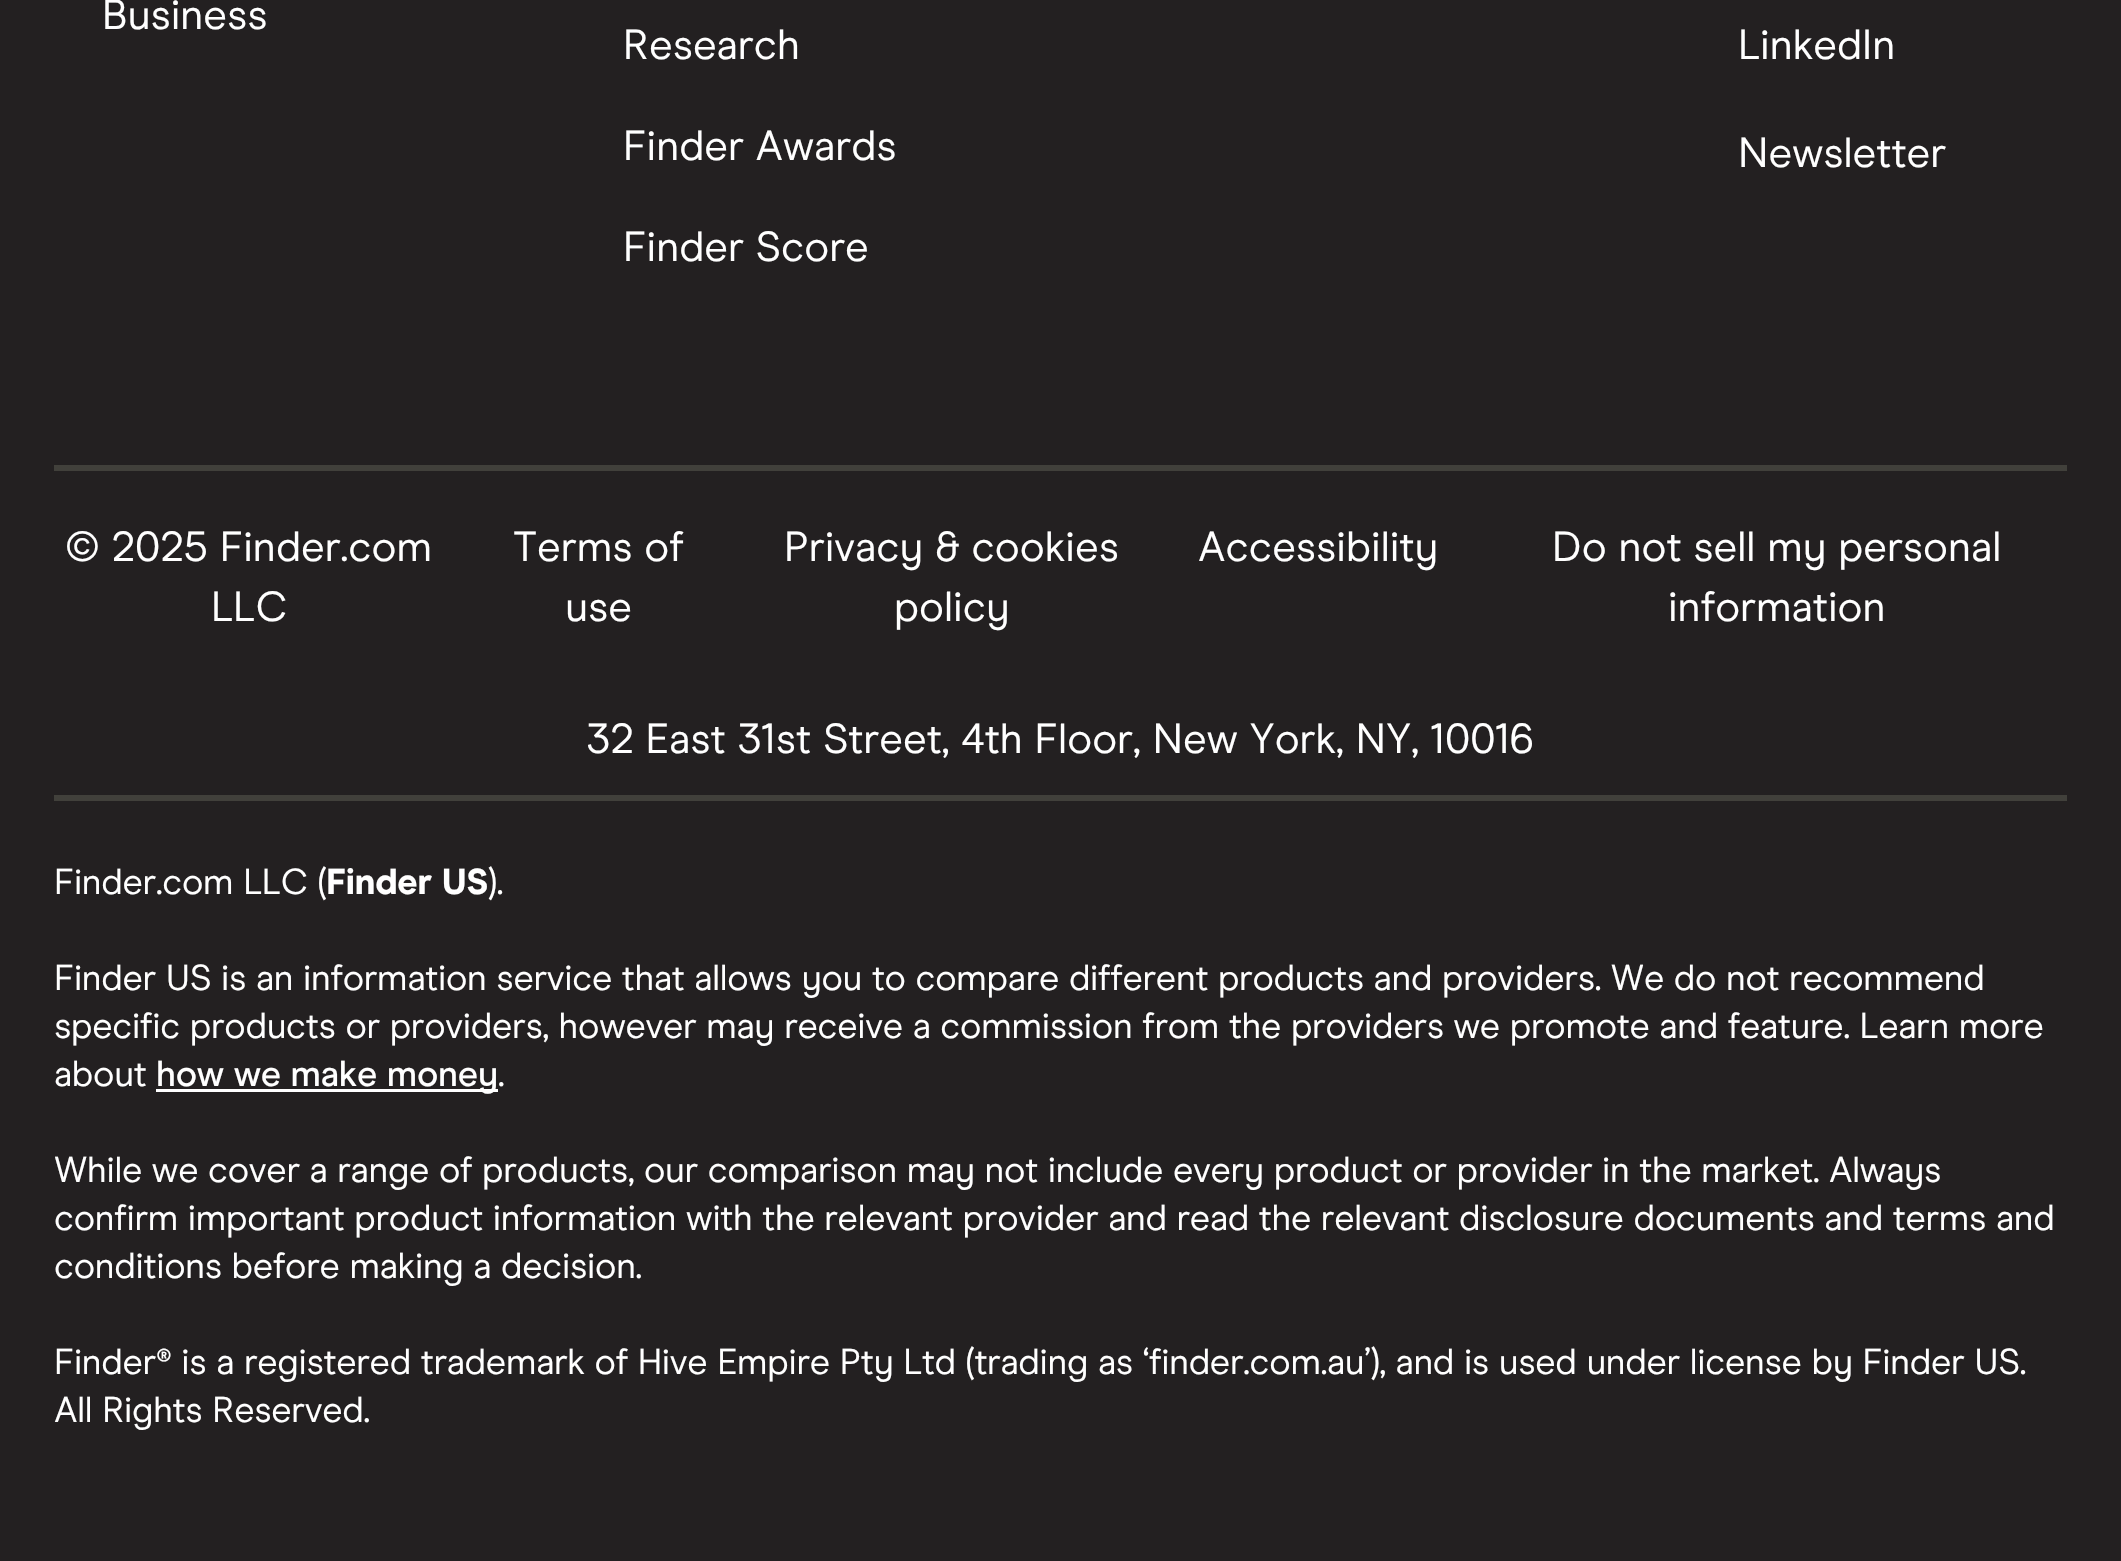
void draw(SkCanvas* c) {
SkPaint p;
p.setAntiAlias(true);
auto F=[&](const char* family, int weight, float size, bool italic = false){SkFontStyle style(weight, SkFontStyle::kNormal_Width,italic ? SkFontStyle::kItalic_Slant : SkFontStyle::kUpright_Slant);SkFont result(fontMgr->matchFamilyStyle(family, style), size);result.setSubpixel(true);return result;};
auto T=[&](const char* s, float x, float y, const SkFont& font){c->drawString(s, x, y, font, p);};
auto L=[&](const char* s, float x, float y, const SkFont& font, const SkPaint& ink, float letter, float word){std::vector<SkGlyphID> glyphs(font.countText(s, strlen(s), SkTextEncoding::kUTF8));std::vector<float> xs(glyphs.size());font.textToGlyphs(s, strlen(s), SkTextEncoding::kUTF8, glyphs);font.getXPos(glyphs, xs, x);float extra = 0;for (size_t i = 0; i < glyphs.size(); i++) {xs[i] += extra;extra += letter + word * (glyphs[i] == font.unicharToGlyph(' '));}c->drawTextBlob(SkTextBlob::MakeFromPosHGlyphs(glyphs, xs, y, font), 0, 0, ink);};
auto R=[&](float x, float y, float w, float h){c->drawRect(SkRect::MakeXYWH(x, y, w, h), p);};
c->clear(0xff232021);
auto f1 = F("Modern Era",400,42);
p.setColor(0xffffffff);
T("Business",102,29,f1);
T("Research",623,59,f1);
T("Finder Awards",623,160,f1);
T("Finder Score",623,261,f1);
T("LinkedIn",1738,59,f1);
T("Newsletter",1738,167,f1);
p.setColor(0xff41403b);
R(54,465,2013,6);
p.setColor(0xffffffff);
T("© 2025 Finder.com",65,561,f1);
T("LLC",211,621,f1);
T("Terms of",513,561,f1);
T("use",565,621,f1);
T("Privacy & cookies",784,561,f1);
T("policy",894,621,f1);
T("Accessibility",1198,561,f1);
T("Do not sell my personal",1552,561,f1);
T("information",1668,621,f1);
T("32 East 31st Street, 4th Floor, New York, NY, 10016",586,753,f1);
p.setColor(0xff41403b);
R(54,795,2013,6);
auto f2 = F("Modern Era",400,36);
p.setColor(0xffffffff);
L("Finder.com LLC (",54,894,f2,p,-.27,0);
auto f3 = F("Modern Era",800,36);
L("Finder US",326,894,f3,p,-.27,0);
L(").",488,894,f2,p,-.27,0);
L("Finder US is an information service that allows you to compare different products and providers. We do not recommend",54,990,f2,p,-.27,0);
L("specific products or providers, however may receive a commission from the providers we promote and feature. Learn more",54,1038,f2,p,-.27,0);
L("about",54,1086,f2,p,-.27,0);
R(156,1089,342,3);
auto f4 = F("Modern Era",500,36);
L("how we make money",156,1086,f4,p,-.27,0);
L(".",498,1086,f2,p,-.27,0);
L("While we cover a range of products, our comparison may not include every product or provider in the market. Always",54,1182,f2,p,-.27,0);
L("confirm important product information with the relevant provider and read the relevant disclosure documents and terms and",54,1230,f2,p,-.27,0);
L("conditions before making a decision.",54,1278,f2,p,-.27,0);
L("Finder® is a registered trademark of Hive Empire Pty Ltd (trading as ‘finder.com.au’), and is used under license by Finder US.",54,1374,f2,p,-.27,0);
L("All Rights Reserved.",54,1422,f2,p,-.27,0);
}
